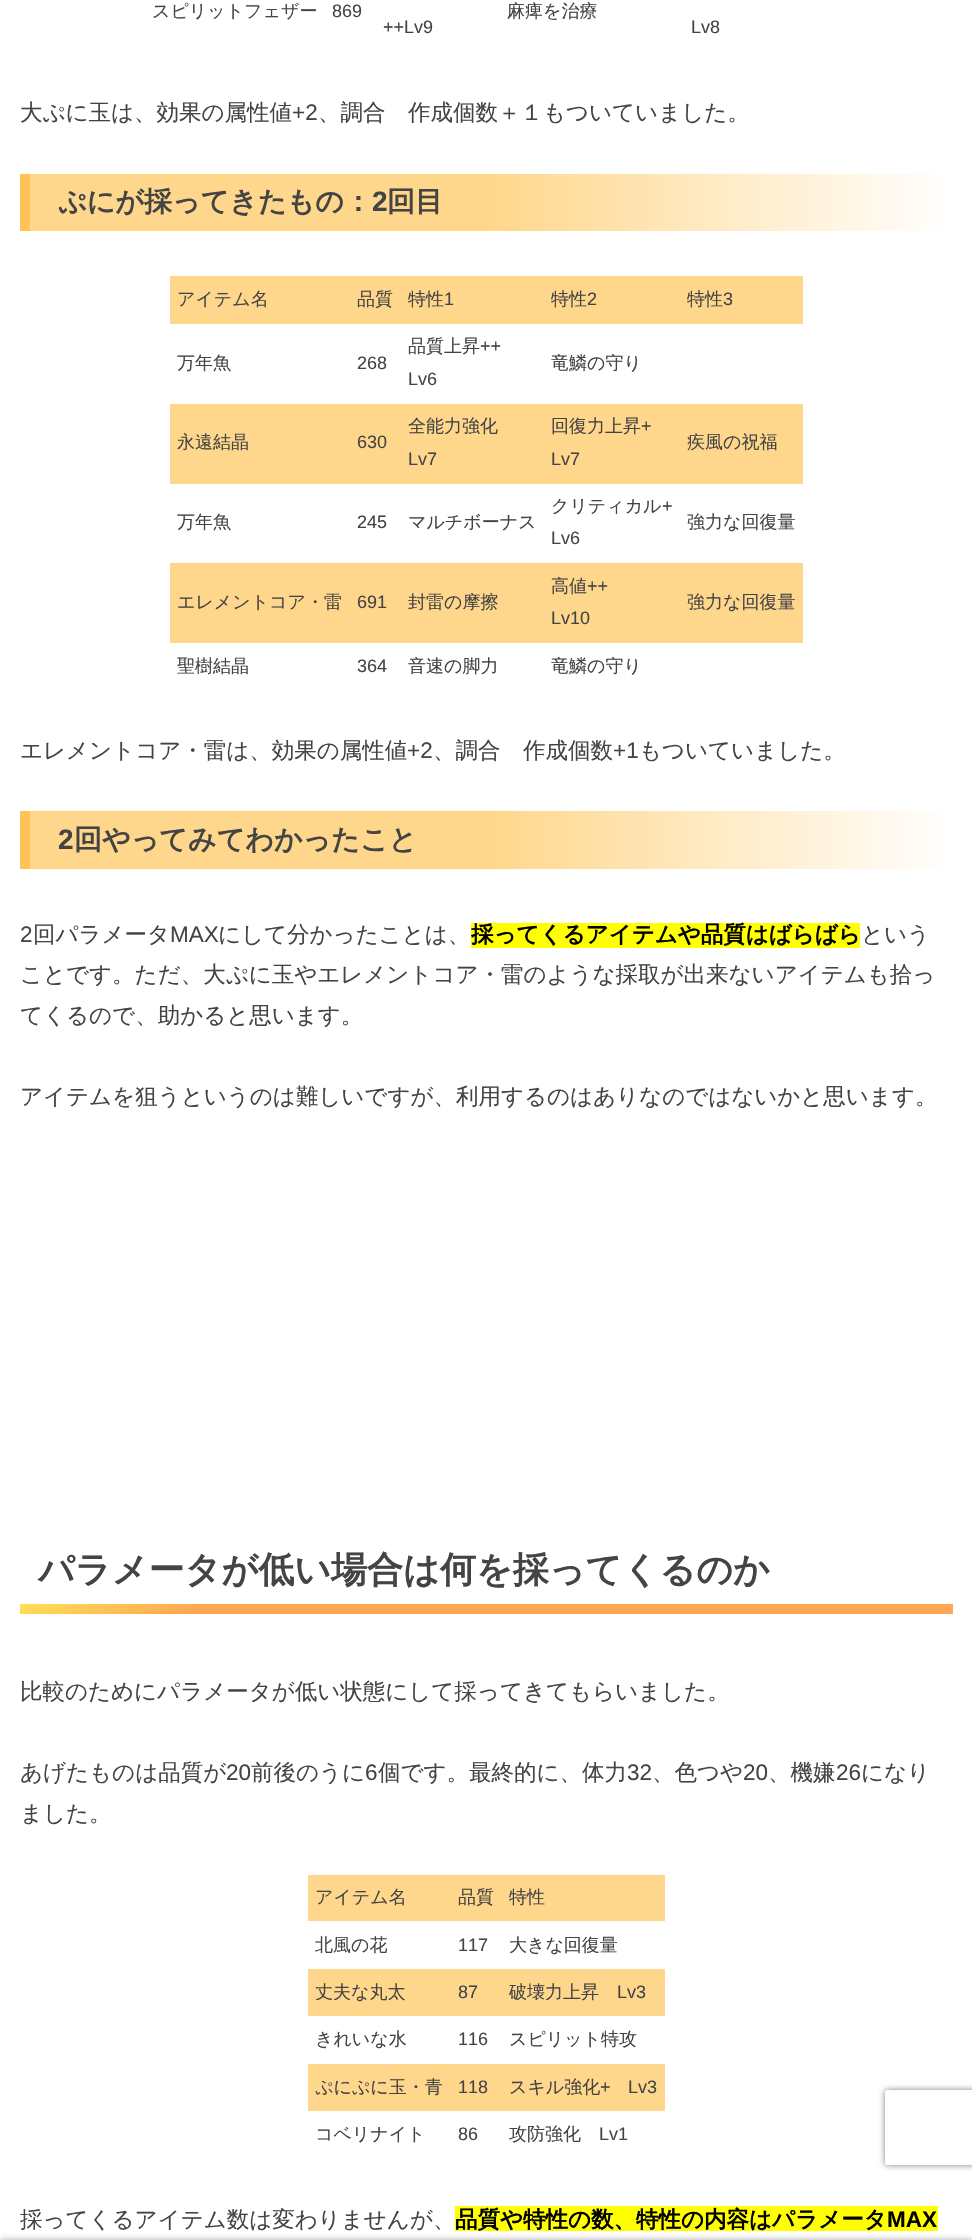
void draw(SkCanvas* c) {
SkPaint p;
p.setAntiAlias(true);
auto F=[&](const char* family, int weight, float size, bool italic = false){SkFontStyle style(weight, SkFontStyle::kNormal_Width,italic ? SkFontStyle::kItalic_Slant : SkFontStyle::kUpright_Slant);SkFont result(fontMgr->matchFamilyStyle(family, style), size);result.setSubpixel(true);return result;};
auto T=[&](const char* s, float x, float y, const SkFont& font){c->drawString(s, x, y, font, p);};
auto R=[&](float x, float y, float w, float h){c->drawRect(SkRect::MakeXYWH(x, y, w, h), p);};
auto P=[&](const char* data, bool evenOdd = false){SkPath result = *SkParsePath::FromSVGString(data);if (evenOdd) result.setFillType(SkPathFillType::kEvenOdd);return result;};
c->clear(0xffffffff);
auto f1 = F("WenQuanYi Zen Hei",500,18);
p.setColor(0xff444444);
T("スピリットフェザー",152,17,f1);
auto f2 = F("Liberation Sans",400,18);
T("869",332,17,f2);
T("麻痺を治療",507,17,f1);
T("++Lv9",383,33,f2);
T("Lv8",691,33,f2);
auto f3 = F("WenQuanYi Zen Hei",500,22.5);
T("大ぷに玉は、効果の属性値",20,120,f3);
auto f4 = F("Liberation Sans",400,22.5);
T("+2",292,120,f4);
T("、調合　作成個数＋１もついていました。",318,120,f3);
{
const SkColor colors[] = {0xffffd78c,0xffffffff};
const float stops[] = {.5,1};
const SkPoint ends[] = {{30,203}, {953,202}};
p.setShader(SkGradientShader::MakeLinear(ends, colors, stops, 2, SkTileMode::kClamp));
p.setAlpha(255);
}
R(30,174,913,57);
p.setShader(nullptr);
p.setColor(0xffffc455);
R(20,174,10,57);
auto f5 = F("WenQuanYi Zen Hei",700,28);
p.setColor(0xff444444);
T("ぷにが採ってきたもの：",58,211,f5);
auto f6 = F("Liberation Sans",700,28);
T("2",372,211,f6);
T("回目",387,211,f5);
p.setColor(0xffffd78c);
R(170,276,633,48);
p.setColor(0xff444444);
T("アイテム名",177,305,f1);
T("品質",357,305,f1);
T("特性",408,305,f1);
T("1",444,305,f2);
T("特性",551,305,f1);
T("2",587,305,f2);
T("特性",687,305,f1);
T("3",723,305,f2);
T("万年魚",177,369,f1);
T("268",357,369,f2);
T("品質上昇",408,352,f1);
T("++",480,352,f2);
T("Lv6",408,385,f2);
T("竜鱗の守り",551,369,f1);
p.setColor(0xffffd78c);
R(170,404,633,80);
p.setColor(0xff444444);
T("永遠結晶",177,448,f1);
T("630",357,448,f2);
T("全能力強化",408,432,f1);
T("Lv7",408,465,f2);
T("回復力上昇",551,432,f1);
T("+",641,432,f2);
T("Lv7",551,465,f2);
T("疾風の祝福",687,448,f1);
T("万年魚",177,528,f1);
T("245",357,528,f2);
T("マルチボーナス",408,528,f1);
T("クリティカル",551,512,f1);
T("+",662,512,f2);
T("Lv6",551,544,f2);
T("強力な回復量",687,528,f1);
p.setColor(0xffffd78c);
R(170,563,633,80);
p.setColor(0xff444444);
T("エレメントコア・雷",177,608,f1);
T("691",357,608,f2);
T("封雷の摩擦",408,608,f1);
T("高値",551,592,f1);
T("++",587,592,f2);
T("Lv10",551,624,f2);
T("強力な回復量",687,608,f1);
T("聖樹結晶",177,672,f1);
T("364",357,672,f2);
T("音速の脚力",408,672,f1);
T("竜鱗の守り",551,672,f1);
T("エレメントコア・雷は、効果の属性値",20,758,f3);
T("+2",407,758,f4);
T("、調合　作成個数",433,758,f3);
T("+1",613,758,f4);
T("もついていました。",639,758,f3);
{
const SkColor colors[] = {0xffffd78c,0xffffffff};
const float stops[] = {.5,1};
const SkPoint ends[] = {{30,840}, {953,840}};
p.setShader(SkGradientShader::MakeLinear(ends, colors, stops, 2, SkTileMode::kClamp));
p.setAlpha(255);
}
R(30,811,913,58);
p.setShader(nullptr);
p.setColor(0xffffc455);
R(20,811,10,58);
p.setColor(0xff444444);
T("2",58,849,f6);
T("回やってみてわかったこと",74,849,f5);
T("2",20,942,f4);
T("回パラメータ",33,942,f3);
T("MAX",170,942,f4);
T("にして分かったことは、",218,942,f3);
p.setColor(0xffffff00);
R(471,923,389,25);
auto f7 = F("WenQuanYi Zen Hei",700,22.5);
p.setColor(0xff000000);
T("採ってくるアイテムや品質はばらばら",471,942,f7);
p.setColor(0xff444444);
T("という",861,942,f3);
T("ことです。ただ、大ぷに玉やエレメントコア・雷のような採取が出来ないアイテムも拾っ",20,982,f3);
T("てくるので、助かると思います。",20,1023,f3);
T("アイテムを狙うというのは難しいですが、利用するのはありなのではないかと思います。",20,1104,f3);
auto f8 = F("WenQuanYi Zen Hei",700,36);
T("パラメータが低い場合は何を採ってくるのか",38,1582,f8);
{
const SkColor colors[] = {0xffffe259,0xffffa751};
const float stops[] = {0,.2};
const SkPoint ends[] = {{454,1488}, {519,1730}};
p.setShader(SkGradientShader::MakeLinear(ends, colors, stops, 2, SkTileMode::kClamp));
p.setAlpha(255);
}
R(20,1604,933,10);
p.setShader(nullptr);
p.setColor(0xff444444);
T("比較のためにパラメータが低い状態にして採ってきてもらいました。",20,1699,f3);
T("あげたものは品質が",20,1780,f3);
T("20",226,1780,f4);
T("前後のうに",251,1780,f3);
T("6",365,1780,f4);
T("個です。最終的に、体力",378,1780,f3);
T("32",627,1780,f4);
T("、色つや",652,1780,f3);
T("20",743,1780,f4);
T("、機嫌",768,1780,f3);
T("26",836,1780,f4);
T("になり",861,1780,f3);
T("ました。",20,1821,f3);
p.setColor(0xffffd78c);
R(308,1875,357,46);
p.setColor(0xff444444);
T("アイテム名",315,1903,f1);
T("品質",458,1903,f1);
T("特性",509,1903,f1);
T("北風の花",315,1951,f1);
T("117",458,1951,f2);
T("大きな回復量",509,1951,f1);
p.setColor(0xffffd78c);
R(308,1969,357,47);
p.setColor(0xff444444);
T("丈夫な丸太",315,1998,f1);
T("87",458,1998,f2);
T("破壊力上昇",509,1998,f1);
T("Lv3",617,1998,f2);
T("きれいな水",315,2045,f1);
T("116",458,2045,f2);
T("スピリット特攻",509,2045,f1);
p.setColor(0xffffd78c);
R(308,2064,357,47);
p.setColor(0xff444444);
T("ぷにぷに玉・青",315,2093,f1);
T("118",458,2093,f2);
T("スキル強化",509,2093,f1);
T("+",600,2093,f2);
T("Lv3",628,2093,f2);
T("コベリナイト",315,2140,f1);
T("86",458,2140,f2);
T("攻防強化",509,2140,f1);
T("Lv1",599,2140,f2);
T("採ってくるアイテム数は変わりませんが、",20,2227,f3);
p.setColor(0xffffff00);
R(455,2206,483,25);
p.setColor(0xff000000);
T("品質や特性の数、特性の内容はパラメータ",455,2227,f7);
auto f9 = F("Liberation Sans",700,22.5);
T("MAX",887,2227,f9);
p.setColor(0xffa9a9a9);
p.setMaskFilter(SkMaskFilter::MakeBlur(kNormal_SkBlurStyle, 3));
c->drawRect(SkRect::MakeXYWH(0,2240,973,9),p);
p.setMaskFilter(nullptr);
c->save();
c->clipPath(P("M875 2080h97v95h-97zm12.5 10h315c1.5 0 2.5 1 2.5 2.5v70c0 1.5-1 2.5-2.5 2.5h-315c-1.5 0-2.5-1-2.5-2.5v-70c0-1.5 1-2.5 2.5-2.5z",true),true);
p.setColor(0xff808080);
p.setMaskFilter(SkMaskFilter::MakeBlur(kNormal_SkBlurStyle, 3));
c->drawRoundRect(SkRect::MakeXYWH(885,2090,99,75),2.5,2.5,p);
p.setMaskFilter(nullptr);
c->restore();
}
